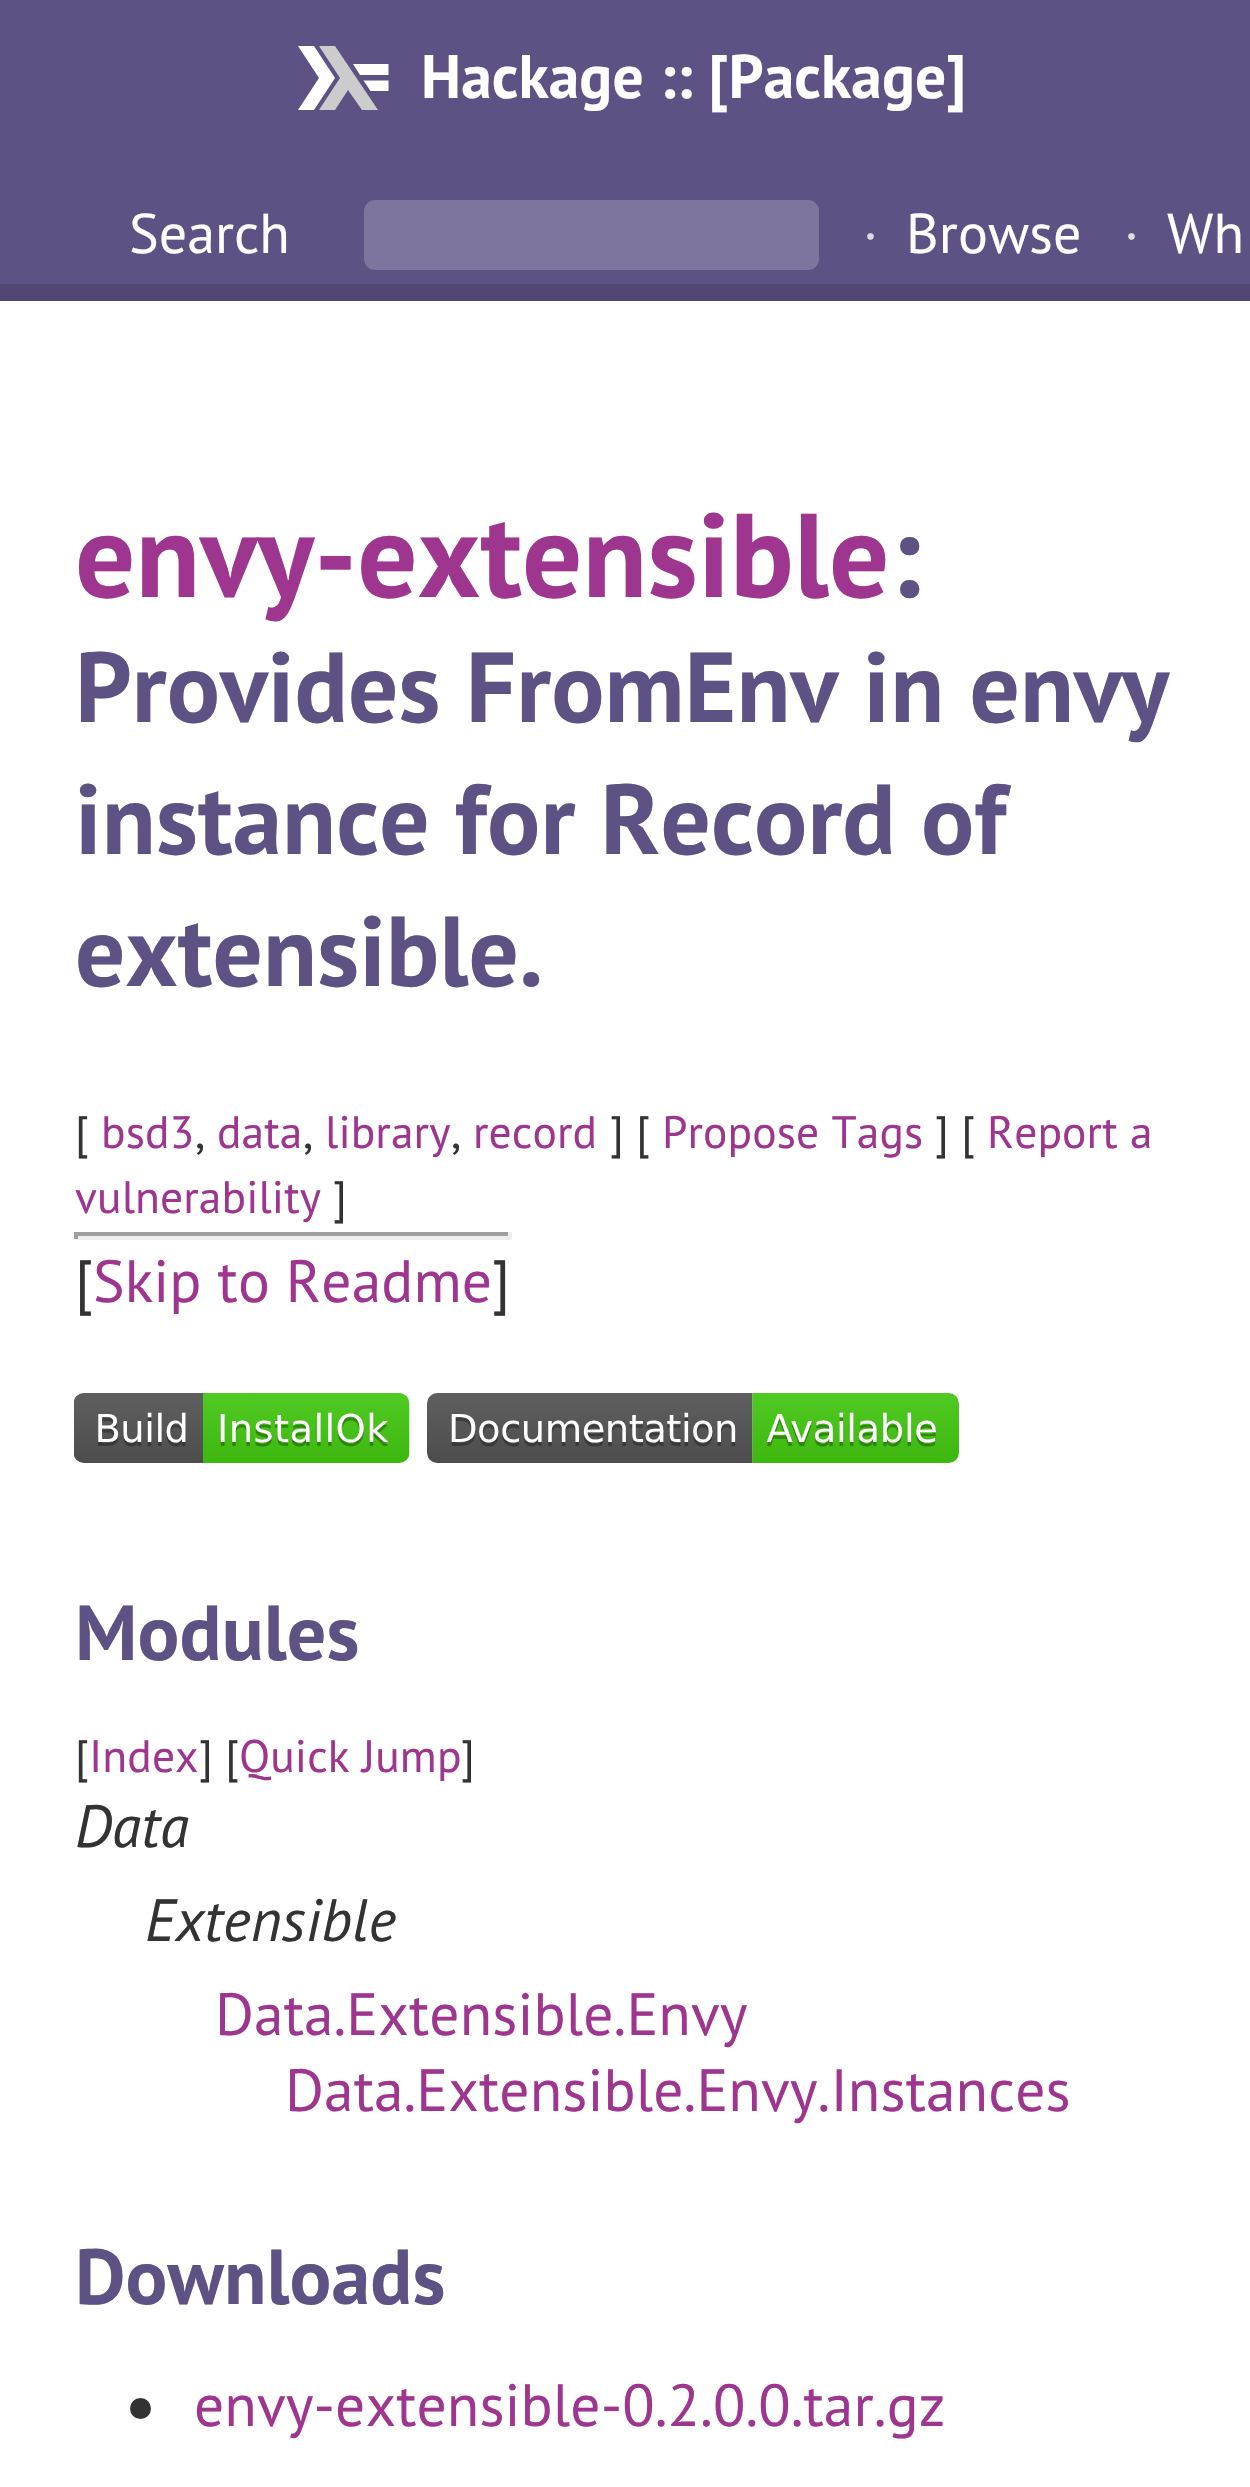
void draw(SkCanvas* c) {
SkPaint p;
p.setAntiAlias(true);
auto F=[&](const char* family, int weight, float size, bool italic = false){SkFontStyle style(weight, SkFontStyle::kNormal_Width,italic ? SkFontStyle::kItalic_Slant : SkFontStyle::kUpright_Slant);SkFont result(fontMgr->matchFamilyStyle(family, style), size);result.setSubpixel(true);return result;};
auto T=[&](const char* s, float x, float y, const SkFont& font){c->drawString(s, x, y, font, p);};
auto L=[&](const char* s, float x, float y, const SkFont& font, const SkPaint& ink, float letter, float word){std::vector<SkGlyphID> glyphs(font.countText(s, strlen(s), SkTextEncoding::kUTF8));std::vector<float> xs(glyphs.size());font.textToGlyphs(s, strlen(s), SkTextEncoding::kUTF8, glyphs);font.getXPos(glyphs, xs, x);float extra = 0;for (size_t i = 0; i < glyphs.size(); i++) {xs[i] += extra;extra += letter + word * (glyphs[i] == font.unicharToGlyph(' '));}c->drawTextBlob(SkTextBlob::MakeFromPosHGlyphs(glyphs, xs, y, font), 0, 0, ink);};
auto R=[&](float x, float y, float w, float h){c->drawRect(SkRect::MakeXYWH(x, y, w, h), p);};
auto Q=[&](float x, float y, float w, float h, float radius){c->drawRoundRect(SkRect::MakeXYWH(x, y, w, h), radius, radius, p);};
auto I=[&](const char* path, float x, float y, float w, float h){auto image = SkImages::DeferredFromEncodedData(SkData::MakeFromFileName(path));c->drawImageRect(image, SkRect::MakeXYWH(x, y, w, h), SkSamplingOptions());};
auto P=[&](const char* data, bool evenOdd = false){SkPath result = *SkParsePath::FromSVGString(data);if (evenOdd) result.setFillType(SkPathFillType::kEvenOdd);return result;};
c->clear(0xffffffff);
p.setColor(0xff5e5184);
R(0,0,1250,284);
p.setColor(0xff524673);
R(0,284,1250,17);
auto f1 = F("PT Sans",700,61.5);
p.setColor(0xffffffff);
L("Hackage :: [Package]",421,98,f1,p,.1,0);
c->drawPath(P("M298 110l21-32l-21-32h16l21 32l-21 32z"),p);
p.setColor(0xffcccccc);
c->drawPath(P("M319 110l21-32l-21-32h16l43 64h-16l-14-20l-13 20z"),p);
p.setColor(0xffffffff);
c->drawPath(P("M370.5 91l-7-10.5h25v10.5zm-10.5-16l-7-11h35.5v11z"),p);
auto f2 = F("PT Sans",400,56);
T("Search",129,253,f2);
p.setColor(0xff7e749d);
Q(364,200,455,70,11);
p.setColor(0xffdddddd);
L("·",863,253,f2,p,.1,0);
p.setColor(0xffffffff);
L("Browse",906,253,f2,p,.1,0);
p.setColor(0xffdddddd);
L("·",1124,253,f2,p,.1,0);
p.setColor(0xffffffff);
L("Wh",1167,253,f2,p,.1,0);
auto f3 = F("PT Sans",700,119);
p.setColor(0xff9e358f);
L("envy-extensible",75,597,f3,p,.1,0);
p.setColor(0xff5e5184);
L(":",889,597,f3,p,.1,0);
auto f4 = F("PT Sans",700,99.25);
L("Provides FromEnv in envy",75,722,f4,p,.1,0);
L("instance for Record of",75,854,f4,p,.1,0);
L("extensible.",75,986,f4,p,.1,0);
auto f5 = F("PT Sans",400,45.5);
p.setColor(0xff333333);
L("[",75,1148,f5,p,.1,0);
p.setColor(0xff9e358f);
L("bsd3",101,1148,f5,p,.1,0);
p.setColor(0xff333333);
L(",",195,1148,f5,p,.1,0);
p.setColor(0xff9e358f);
L("data",217,1148,f5,p,.1,0);
p.setColor(0xff333333);
L(",",303,1148,f5,p,.1,0);
p.setColor(0xff9e358f);
L("library",325,1148,f5,p,.1,0);
p.setColor(0xff333333);
L(",",451,1148,f5,p,.1,0);
p.setColor(0xff9e358f);
L("record",473,1148,f5,p,.1,0);
p.setColor(0xff333333);
L("] [",610,1148,f5,p,.1,0);
p.setColor(0xff9e358f);
L("Propose Tags",662,1148,f5,p,.1,0);
p.setColor(0xff333333);
L("] [",935,1148,f5,p,.1,0);
p.setColor(0xff9e358f);
L("Report a",987,1148,f5,p,.1,0);
L("vulnerability",75,1213,f5,p,.1,0);
p.setColor(0xff333333);
L("]",333,1213,f5,p,.1,0);
p.setColor(0xff9f9f9f);
R(74,1232,437,4);
p.setColor(0xffeeeeee);
R(508,1232,4,7);
R(74,1236,437,4);
p.setColor(0xff9f9f9f);
R(74,1232,4,7);
auto f6 = F("PT Sans",400,59.5);
p.setColor(0xff333333);
L("[",75,1302,f6,p,.1,0);
p.setColor(0xff9e358f);
L("Skip to Readme",93,1302,f6,p,.1,0);
p.setColor(0xff333333);
L("]",492,1302,f6,p,.1,0);
I("1.png",74,1393,336,70);
I("2.png",427,1393,532,70);
auto f7 = F("PT Sans",700,78);
p.setColor(0xff5e5184);
L("Modules",75,1660,f7,p,.1,0);
p.setColor(0xff333333);
L("[",75,1772,f5,p,.1,0);
p.setColor(0xff9e358f);
L("Index",89,1772,f5,p,.1,0);
p.setColor(0xff333333);
L("] [",199,1772,f5,p,.1,0);
p.setColor(0xff9e358f);
L("Quick Jump",239,1772,f5,p,.1,0);
p.setColor(0xff333333);
L("]",461,1772,f5,p,.1,0);
auto f8 = F("PT Sans",400,59.5,true);
L("Data",75,1847,f8,p,.1,0);
L("Extensible",145,1941,f8,p,.1,0);
p.setColor(0xff9e358f);
L("Data.Extensible.Envy",215,2035,f6,p,.1,0);
L("Data.Extensible.Envy.Instances",285,2111,f6,p,.1,0);
p.setColor(0xff5e5184);
L("Downloads",75,2304,f7,p,.1,0);
p.setColor(0xff333333);
c->drawCircle(140.5,2408.5,10.5,p);
p.setColor(0xff9e358f);
L("envy-extensible-0.2.0.0.tar.gz",194,2426,f6,p,.1,0);
}
